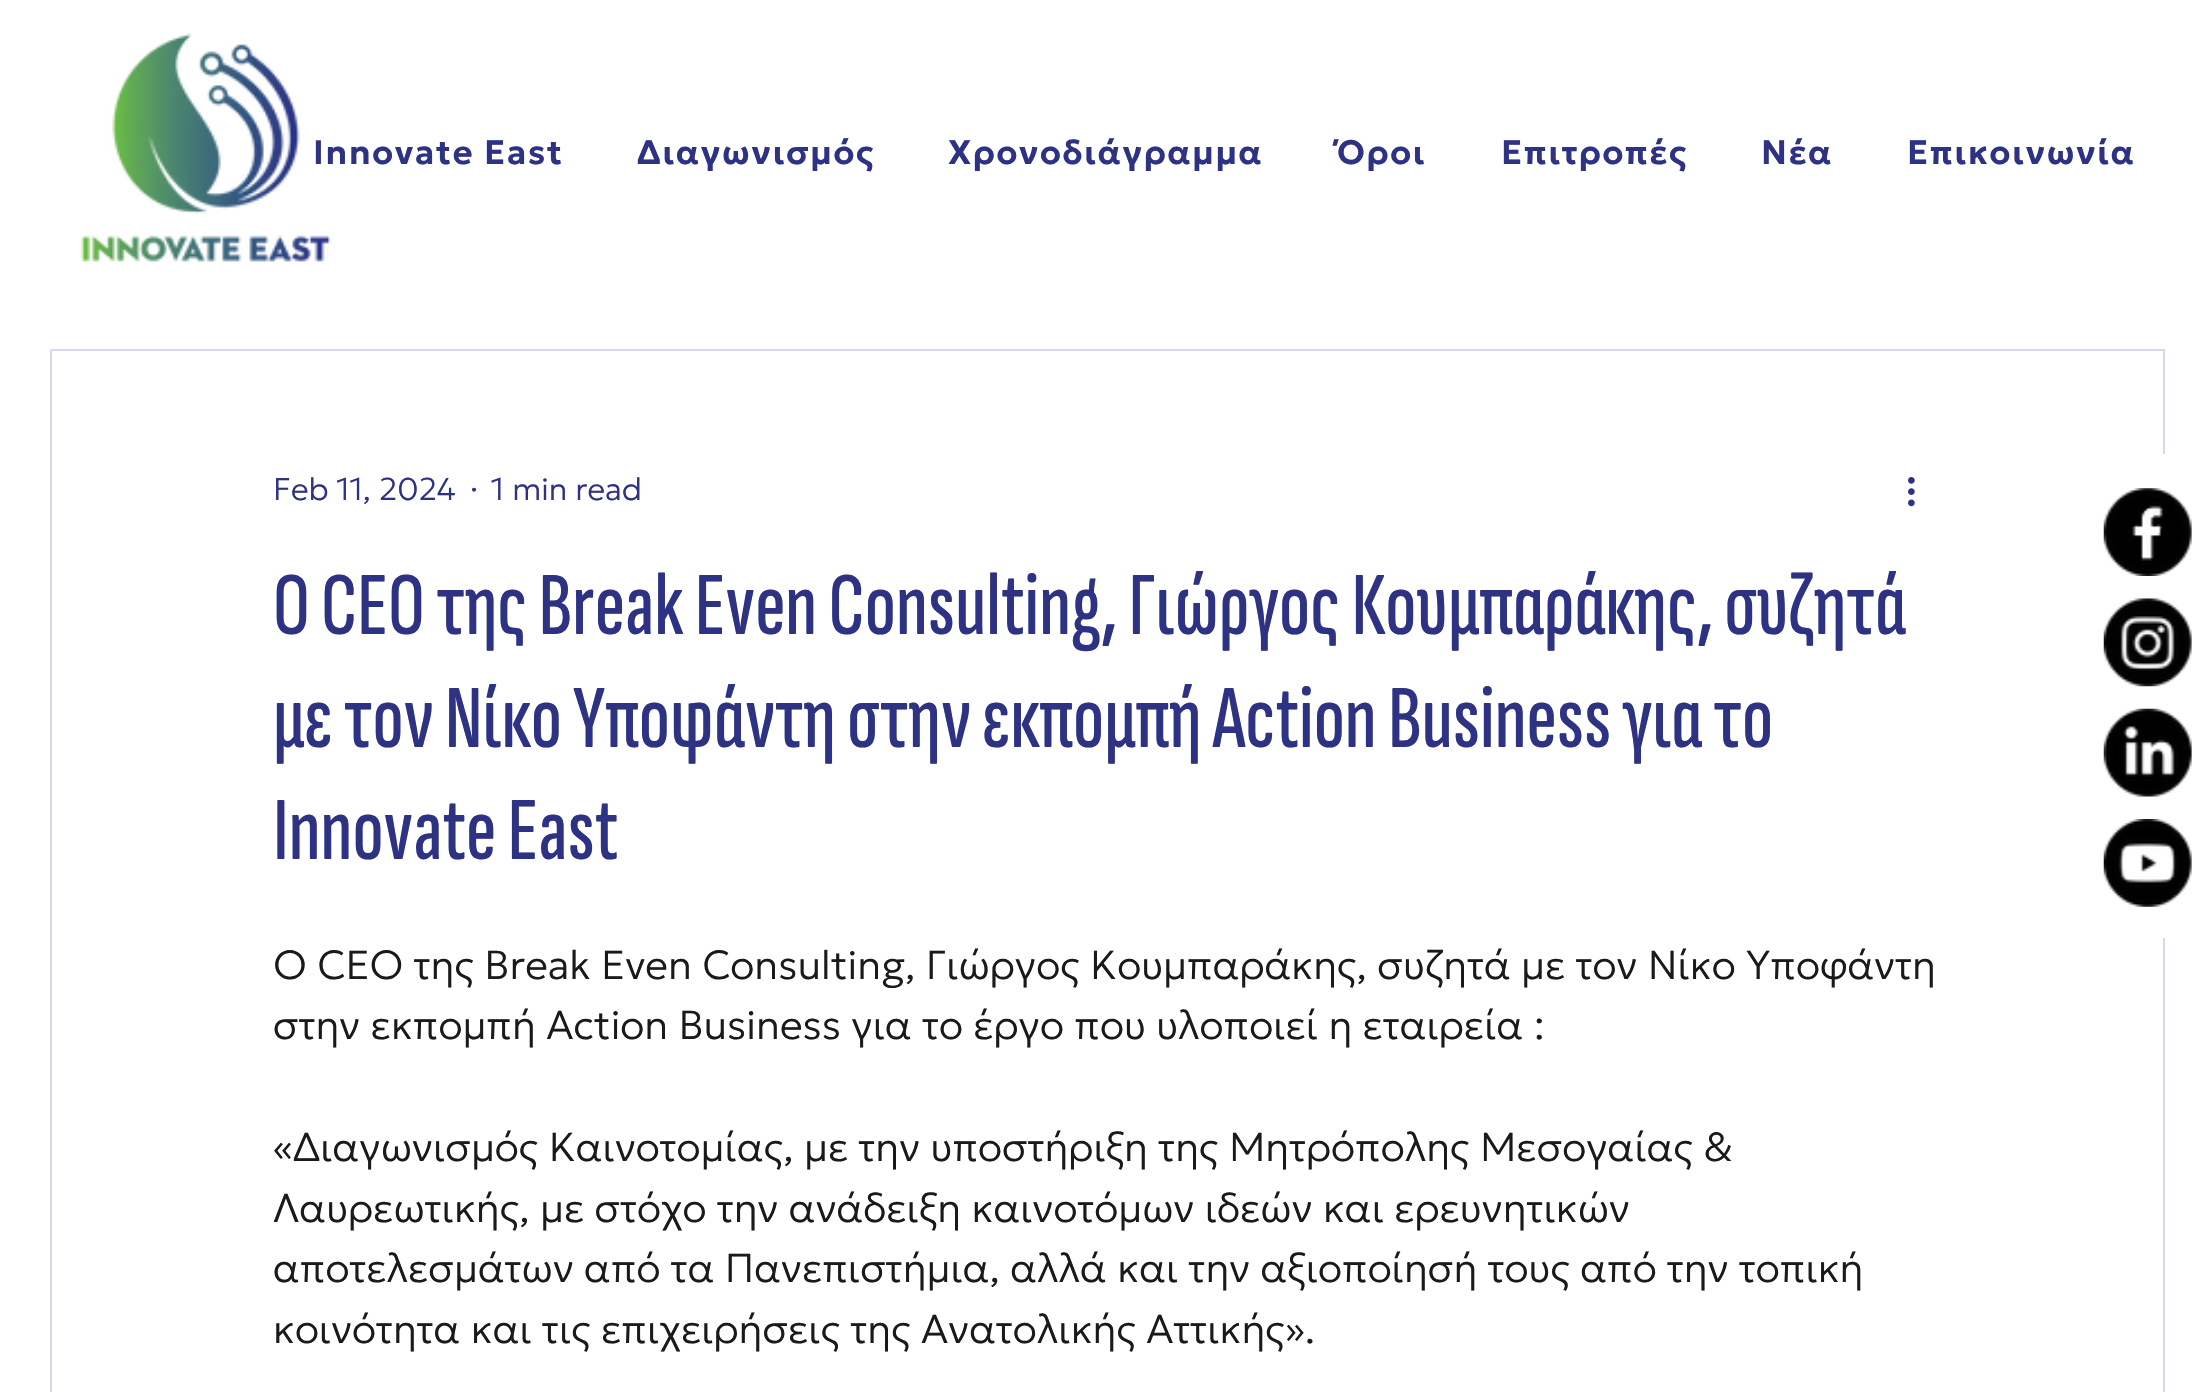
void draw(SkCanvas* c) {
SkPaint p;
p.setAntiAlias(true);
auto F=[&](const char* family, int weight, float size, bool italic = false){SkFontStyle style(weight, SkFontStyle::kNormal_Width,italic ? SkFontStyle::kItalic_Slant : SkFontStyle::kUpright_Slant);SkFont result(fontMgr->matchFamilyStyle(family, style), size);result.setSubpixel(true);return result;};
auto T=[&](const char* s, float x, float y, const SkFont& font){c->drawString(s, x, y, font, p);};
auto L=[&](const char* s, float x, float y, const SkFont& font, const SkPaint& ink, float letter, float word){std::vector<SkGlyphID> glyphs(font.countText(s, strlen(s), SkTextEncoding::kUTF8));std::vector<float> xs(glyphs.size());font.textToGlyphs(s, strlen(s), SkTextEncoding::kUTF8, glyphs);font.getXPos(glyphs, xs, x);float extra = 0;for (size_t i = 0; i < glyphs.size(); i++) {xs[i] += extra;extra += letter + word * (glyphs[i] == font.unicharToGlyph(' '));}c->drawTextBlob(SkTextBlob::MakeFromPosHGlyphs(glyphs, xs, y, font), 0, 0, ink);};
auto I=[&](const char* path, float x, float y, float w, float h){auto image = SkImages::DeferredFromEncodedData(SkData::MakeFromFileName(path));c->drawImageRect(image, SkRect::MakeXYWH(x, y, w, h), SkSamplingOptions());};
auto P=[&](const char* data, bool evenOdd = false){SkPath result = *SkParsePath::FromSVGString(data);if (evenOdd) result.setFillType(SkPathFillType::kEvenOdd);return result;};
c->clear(0xffffffff);
auto f1 = F("Geologica",600,33.75);
p.setColor(0xff2e3283);
L("Innovate East",313,164,f1,p,1.75,0);
I("1.png",80,33,251,229);
L("Διαγωνισμός",637,164,f1,p,1.75,0);
L("Χρονοδιάγραμμα",948,164,f1,p,1.75,0);
L("Όροι",1337,164,f1,p,1.75,0);
L("Επιτροπές",1501,164,f1,p,1.75,0);
L("Νέα",1761,164,f1,p,1.75,0);
L("Επικοινωνία",1907,164,f1,p,1.75,0);
p.setStroke(true);
p.setStrokeWidth(2);
p.setColor(0xffd8d9e8);
c->drawRect(SkRect::MakeXYWH(51,350,2113,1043),p);
auto f2 = F("Geologica",200,31.5);
p.setStroke(false);
p.setColor(0xff2e3283);
T("Feb 11, 2024",273,500,f2);
T("·",470,500,f2);
T("1 min read",491,500,f2);
I("2.png",1908,477,7,30);
auto f3 = F("Sofia Sans Extra Condensed",500,90);
T("Ο CEO της Break Even Consulting, Γιώργος Κουμπαράκης, συζητά",273,634,f3);
T("με τον Νίκο Υποφάντη στην εκπομπή Action Business για το",273,747,f3);
T("Innovate East",273,859,f3);
auto f4 = F("Geologica",200,40.5);
p.setColor(0xff1a1a1a);
T("Ο CEO της Break Even Consulting, Γιώργος Κουμπαράκης, συζητά με τον Νίκο Υποφάντη",273,979,f4);
T("στην εκπομπή Action Business για το έργο που υλοποιεί η εταιρεία :",273,1039,f4);
T("«Διαγωνισμός Καινοτομίας, με την υποστήριξη της Μητρόπολης Μεσογαίας &",273,1161,f4);
T("Λαυρεωτικής, με στόχο την ανάδειξη καινοτόμων ιδεών και ερευνητικών",273,1222,f4);
T("αποτελεσμάτων από τα Πανεπιστήμια, αλλά και την αξιοποίησή τους από την τοπική",273,1282,f4);
T("κοινότητα και τις επιχειρήσεις της Ανατολικής Αττικής».",273,1343,f4);
p.setColor(0xffffffff);
c->drawPath(P("M2109 454h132v484h-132c-31 0-57-25-57-57v-370c0-31 26-57 57-57z"),p);
I("3.png",2103,488,89,88);
I("4.png",2103,598,89,89);
I("5.png",2103,708,89,89);
I("6.png",2103,819,89,88);
}
